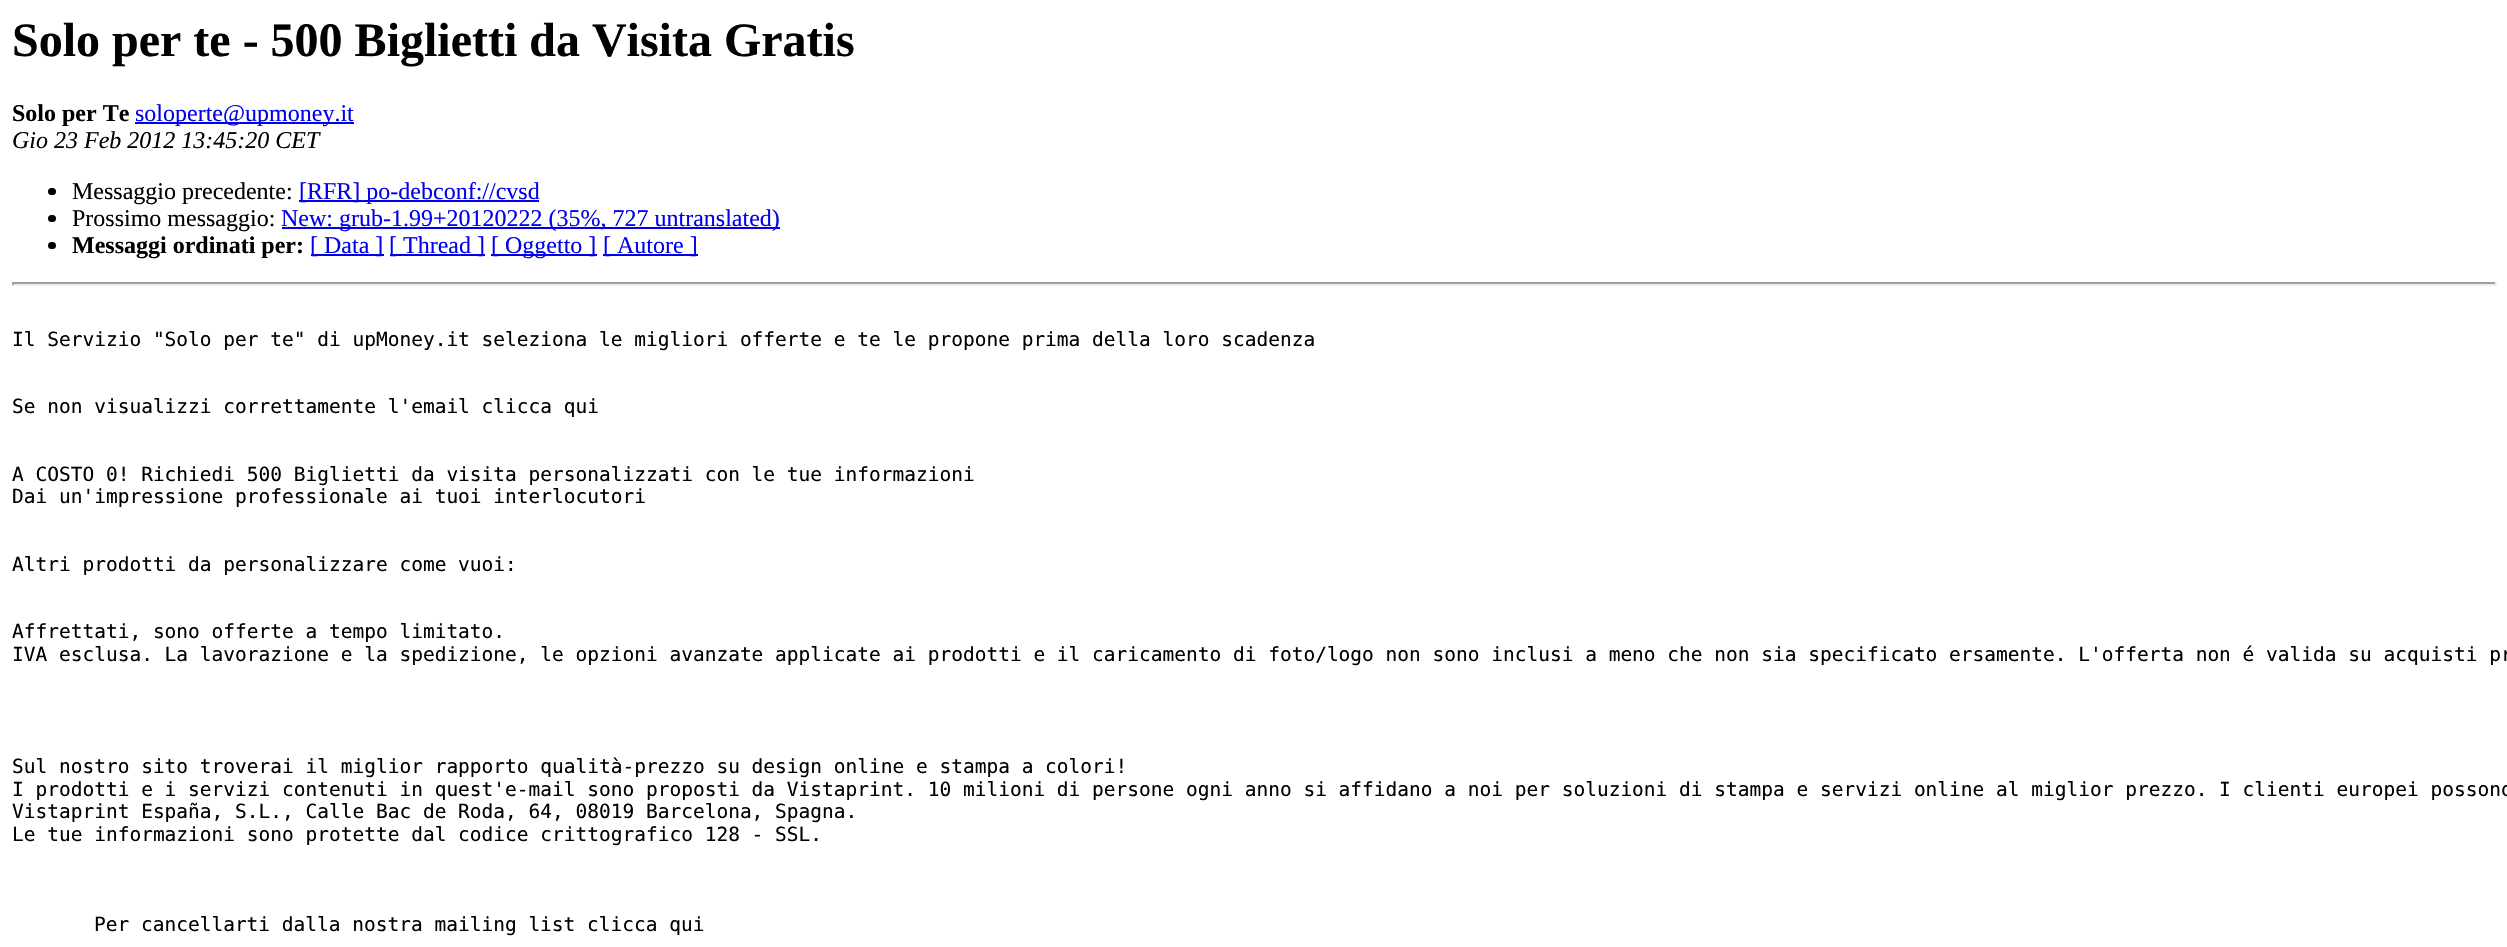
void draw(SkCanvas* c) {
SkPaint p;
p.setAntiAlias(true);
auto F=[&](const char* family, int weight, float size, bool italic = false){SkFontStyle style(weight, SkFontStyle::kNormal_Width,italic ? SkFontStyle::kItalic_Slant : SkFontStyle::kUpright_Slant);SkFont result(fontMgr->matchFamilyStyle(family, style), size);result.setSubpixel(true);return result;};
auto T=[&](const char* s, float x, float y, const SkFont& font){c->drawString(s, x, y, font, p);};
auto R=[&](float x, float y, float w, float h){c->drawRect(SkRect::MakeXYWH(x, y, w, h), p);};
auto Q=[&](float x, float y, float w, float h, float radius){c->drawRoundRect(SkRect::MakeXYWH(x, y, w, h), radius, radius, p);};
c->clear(0xffffffff);
auto f1 = F("Liberation Serif",700,48);
p.setColor(0xff000000);
T("Solo per te - 500 Biglietti da Visita Gratis",12,56,f1);
auto f2 = F("Liberation Serif",700,24);
T("Solo per Te",12,121,f2);
p.setColor(0xff0000ee);
R(135,122,219,2);
auto f3 = F("Liberation Serif",400,24);
T("soloperte@upmoney.it",135,121,f3);
auto f4 = F("Liberation Serif",400,24,true);
p.setColor(0xff000000);
T("Gio 23 Feb 2012 13:45:20 CET",12,148,f4);
Q(48,188,8,7,3.5);
T("Messaggio precedente:",72,199,f3);
p.setColor(0xff0000ee);
R(299,200,240,2);
T("[RFR] po-debconf://cvsd",299,199,f3);
p.setColor(0xff000000);
Q(48,215,8,7,3.5);
T("Prossimo messaggio:",72,226,f3);
p.setColor(0xff0000ee);
R(282,227,498,2);
T("New: grub-1.99+20120222 (35%, 727 untranslated)",281,226,f3);
p.setColor(0xff000000);
Q(48,242,8,7,3.5);
T("Messaggi ordinati per:",72,253,f2);
p.setColor(0xff0000ee);
R(311,254,73,2);
T("[ Data ]",310,253,f3);
R(390,254,95,2);
T("[ Thread ]",389,253,f3);
R(491,254,106,2);
T("[ Oggetto ]",491,253,f3);
R(603,254,95,2);
T("[ Autore ]",603,253,f3);
p.setColor(0xff9f9f9f);
R(12,282,2484,2);
p.setColor(0xffeeeeee);
R(2495,282,2,3);
R(12,284,2484,2);
p.setColor(0xff9f9f9f);
R(12,282,2,3);
auto f5 = F("DejaVu Sans Mono",400,19.5);
p.setColor(0xff000000);
T("Il Servizio \"Solo per te\" di upMoney.it seleziona le migliori offerte e te le propone prima della loro scadenza",12,346,f5);
T("Se non visualizzi correttamente l'email clicca qui",12,413,f5);
T("A COSTO 0! Richiedi 500 Biglietti da visita personalizzati con le tue informazioni",12,481,f5);
T("Dai un'impressione professionale ai tuoi interlocutori",12,503,f5);
T("Altri prodotti da personalizzare come vuoi:",12,571,f5);
T("Affrettati, sono offerte a tempo limitato.",12,638,f5);
T("IVA esclusa. La lavorazione e la spedizione, le opzioni avanzate applicate ai prodotti e il caricamento di foto/logo non sono inclusi a meno che non sia specificato ersamente. L'offerta non é valida su acquisti pr",12,661,f5);
T("Sul nostro sito troverai il miglior rapporto qualità-prezzo su design online e stampa a colori!",12,773,f5);
T("I prodotti e i servizi contenuti in quest'e-mail sono proposti da Vistaprint. 10 milioni di persone ogni anno si affidano a noi per soluzioni di stampa e servizi online al miglior prezzo. I clienti europei possono",12,796,f5);
T("Vistaprint España, S.L., Calle Bac de Roda, 64, 08019 Barcelona, Spagna.",12,818,f5);
T("Le tue informazioni sono protette dal codice crittografico 128 - SSL.",12,841,f5);
T("Per cancellarti dalla nostra mailing list clicca qui",94,931,f5);
}
